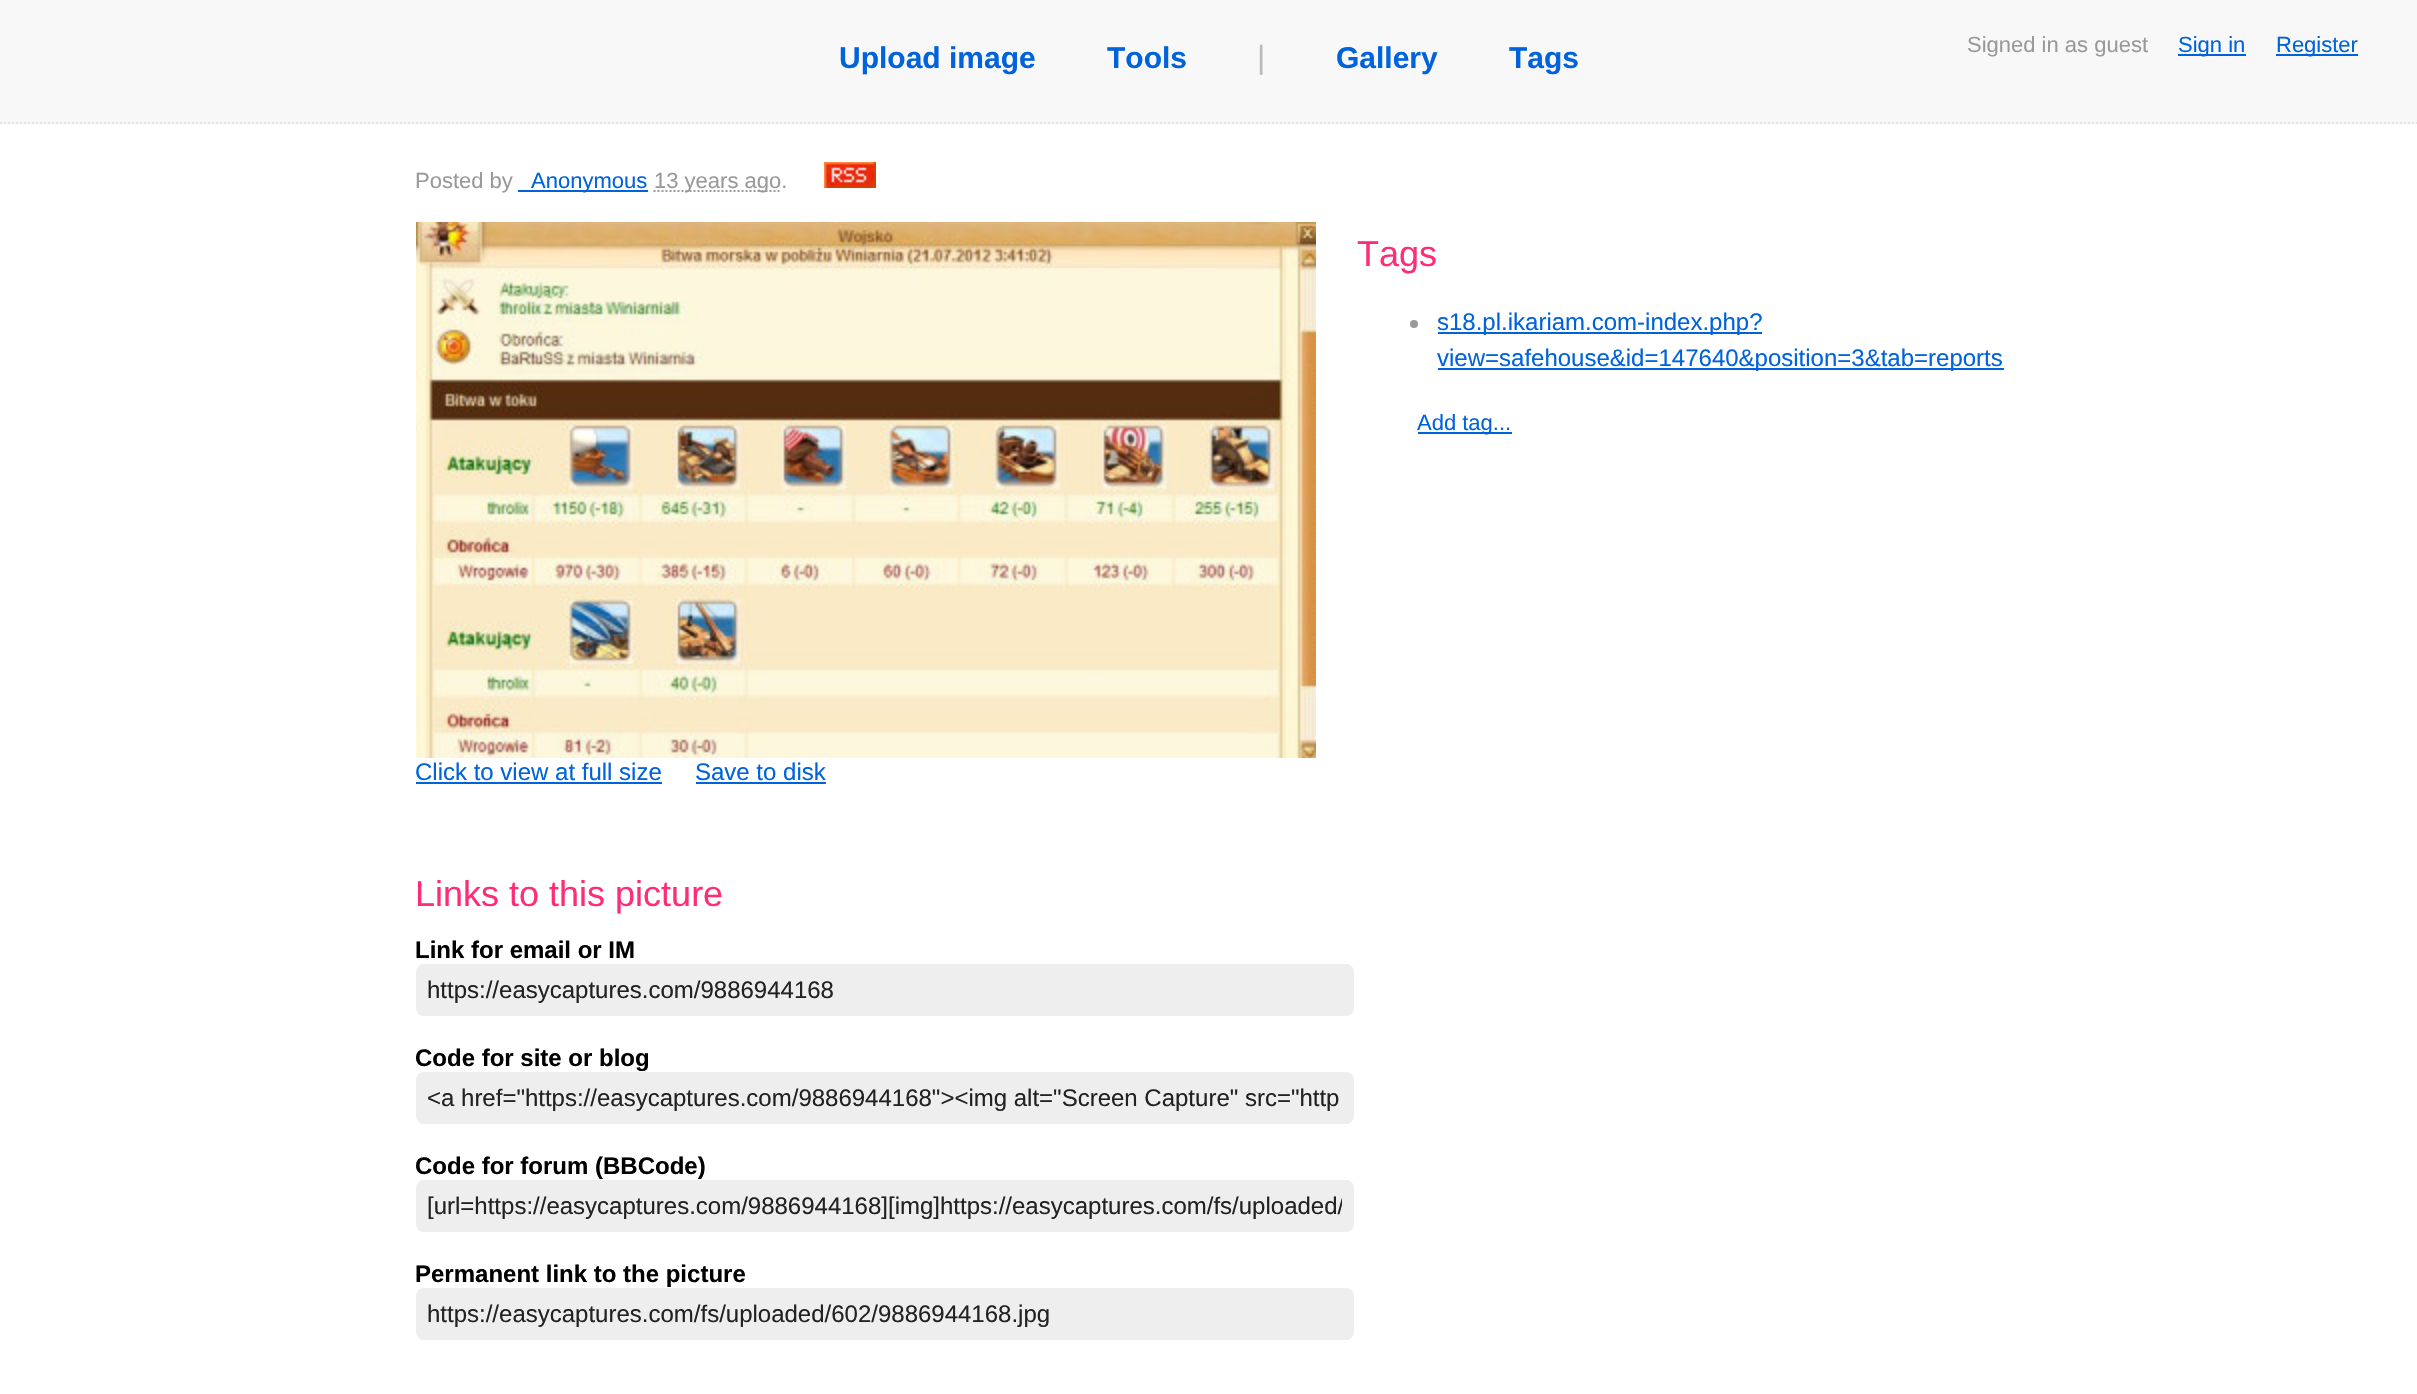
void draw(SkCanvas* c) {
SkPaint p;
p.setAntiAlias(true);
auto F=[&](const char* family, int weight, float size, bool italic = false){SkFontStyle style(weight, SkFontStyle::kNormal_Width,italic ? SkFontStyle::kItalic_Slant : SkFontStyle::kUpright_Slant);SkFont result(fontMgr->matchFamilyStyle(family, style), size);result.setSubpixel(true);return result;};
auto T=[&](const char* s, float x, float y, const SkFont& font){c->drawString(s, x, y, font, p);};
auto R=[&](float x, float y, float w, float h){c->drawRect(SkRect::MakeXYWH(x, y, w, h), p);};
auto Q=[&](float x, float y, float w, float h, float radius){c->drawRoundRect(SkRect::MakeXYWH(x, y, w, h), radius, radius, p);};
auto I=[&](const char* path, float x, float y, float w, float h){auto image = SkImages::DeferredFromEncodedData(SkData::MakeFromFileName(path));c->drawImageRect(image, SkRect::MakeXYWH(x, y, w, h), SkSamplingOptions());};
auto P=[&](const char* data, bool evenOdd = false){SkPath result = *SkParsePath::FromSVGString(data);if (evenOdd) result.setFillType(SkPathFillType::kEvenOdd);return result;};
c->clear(0xffffffff);
p.setColor(0xfff8f8f8);
R(0,0,2417,122);
I("1.png",0,122,2417,2);
auto f1 = F("Liberation Sans",700,30);
p.setColor(0xff0063dc);
T("Upload image",839,68,f1);
T("Tools",1107,68,f1);
auto f2 = F("Liberation Sans",400,32);
p.setColor(0xffbbbbbb);
T("|",1257,68,f2);
p.setColor(0xff0063dc);
T("Gallery",1336,68,f1);
T("Tags",1509,68,f1);
auto f3 = F("Liberation Sans",400,22);
p.setColor(0xff999999);
T("Signed in as guest",1967,52,f3);
p.setColor(0xff0063dc);
R(2178,54,68,2);
T("Sign in",2178,52,f3);
R(2276,54,82,2);
T("Register",2276,52,f3);
p.setColor(0xff999999);
T("Posted by",415,188,f3);
p.setColor(0xff0063dc);
R(518,190,130,2);
T("Anonymous",531,188,f3);
p.setStroke(true);
p.setStrokeWidth(2);
p.setColor(0xff999999);
p.setPathEffect(SkDashPathEffect::Make({{2,2}}, 0));
c->drawPath(P("M653.5 191h127.5"),p);
p.setPathEffect(nullptr);
p.setStroke(false);
T("13 years ago.",654,188,f3);
I("2.png",824,162,52,26);
I("3.png",416,222,900,536);
auto f4 = F("Liberation Sans",400,24);
p.setColor(0xff0063dc);
T("Click to view at full size",415,780,f4);
R(416,782,246,2);
T("Save to disk",695,780,f4);
R(696,782,130,2);
auto f5 = F("Liberation Sans",400,36);
p.setColor(0xffff2d77);
T("Links to this picture",415,906,f5);
auto f6 = F("Liberation Sans",700,24);
p.setColor(0xff000000);
T("Link for email or IM",415,958,f6);
p.setColor(0xffeeeeee);
Q(416,964,938,52,8);
p.setColor(0xff222222);
T("https://easycaptures.com/9886944168",427,998,f4);
p.setColor(0xff000000);
T("Code for site or blog",415,1066,f6);
p.setColor(0xffeeeeee);
Q(416,1072,938,52,8);
p.setColor(0xff222222);
T("<a href=\"https://easycaptures.com/9886944168\"><img alt=\"Screen Capture\" src=\"http",427,1106,f4);
p.setColor(0xff000000);
T("Code for forum (BBCode)",415,1174,f6);
p.setColor(0xffeeeeee);
Q(416,1180,938,52,8);
c->save();
c->clipRect(SkRect::MakeXYWH(428,1192,914,28));
p.setColor(0xff222222);
T("[url=https://easycaptures.com/9886944168][img]https://easycaptures.com/fs/uploaded/",427,1214,f4);
c->restore();
p.setColor(0xff000000);
T("Permanent link to the picture",415,1282,f6);
p.setColor(0xffeeeeee);
Q(416,1288,938,52,8);
p.setColor(0xff222222);
T("https://easycaptures.com/fs/uploaded/602/9886944168.jpg",427,1322,f4);
p.setColor(0xffff2d77);
T("Tags",1357,266,f5);
p.setColor(0xff999999);
c->drawCircle(1414,324,4,p);
p.setColor(0xff0063dc);
R(1438,332,324,2);
T("s18.pl.ikariam.com-index.php?",1437,330,f4);
R(1438,368,566,2);
T("view=safehouse&id=147640&position=3&tab=reports",1437,366,f4);
R(1418,432,94,2);
T("Add tag...",1417,430,f3);
}
